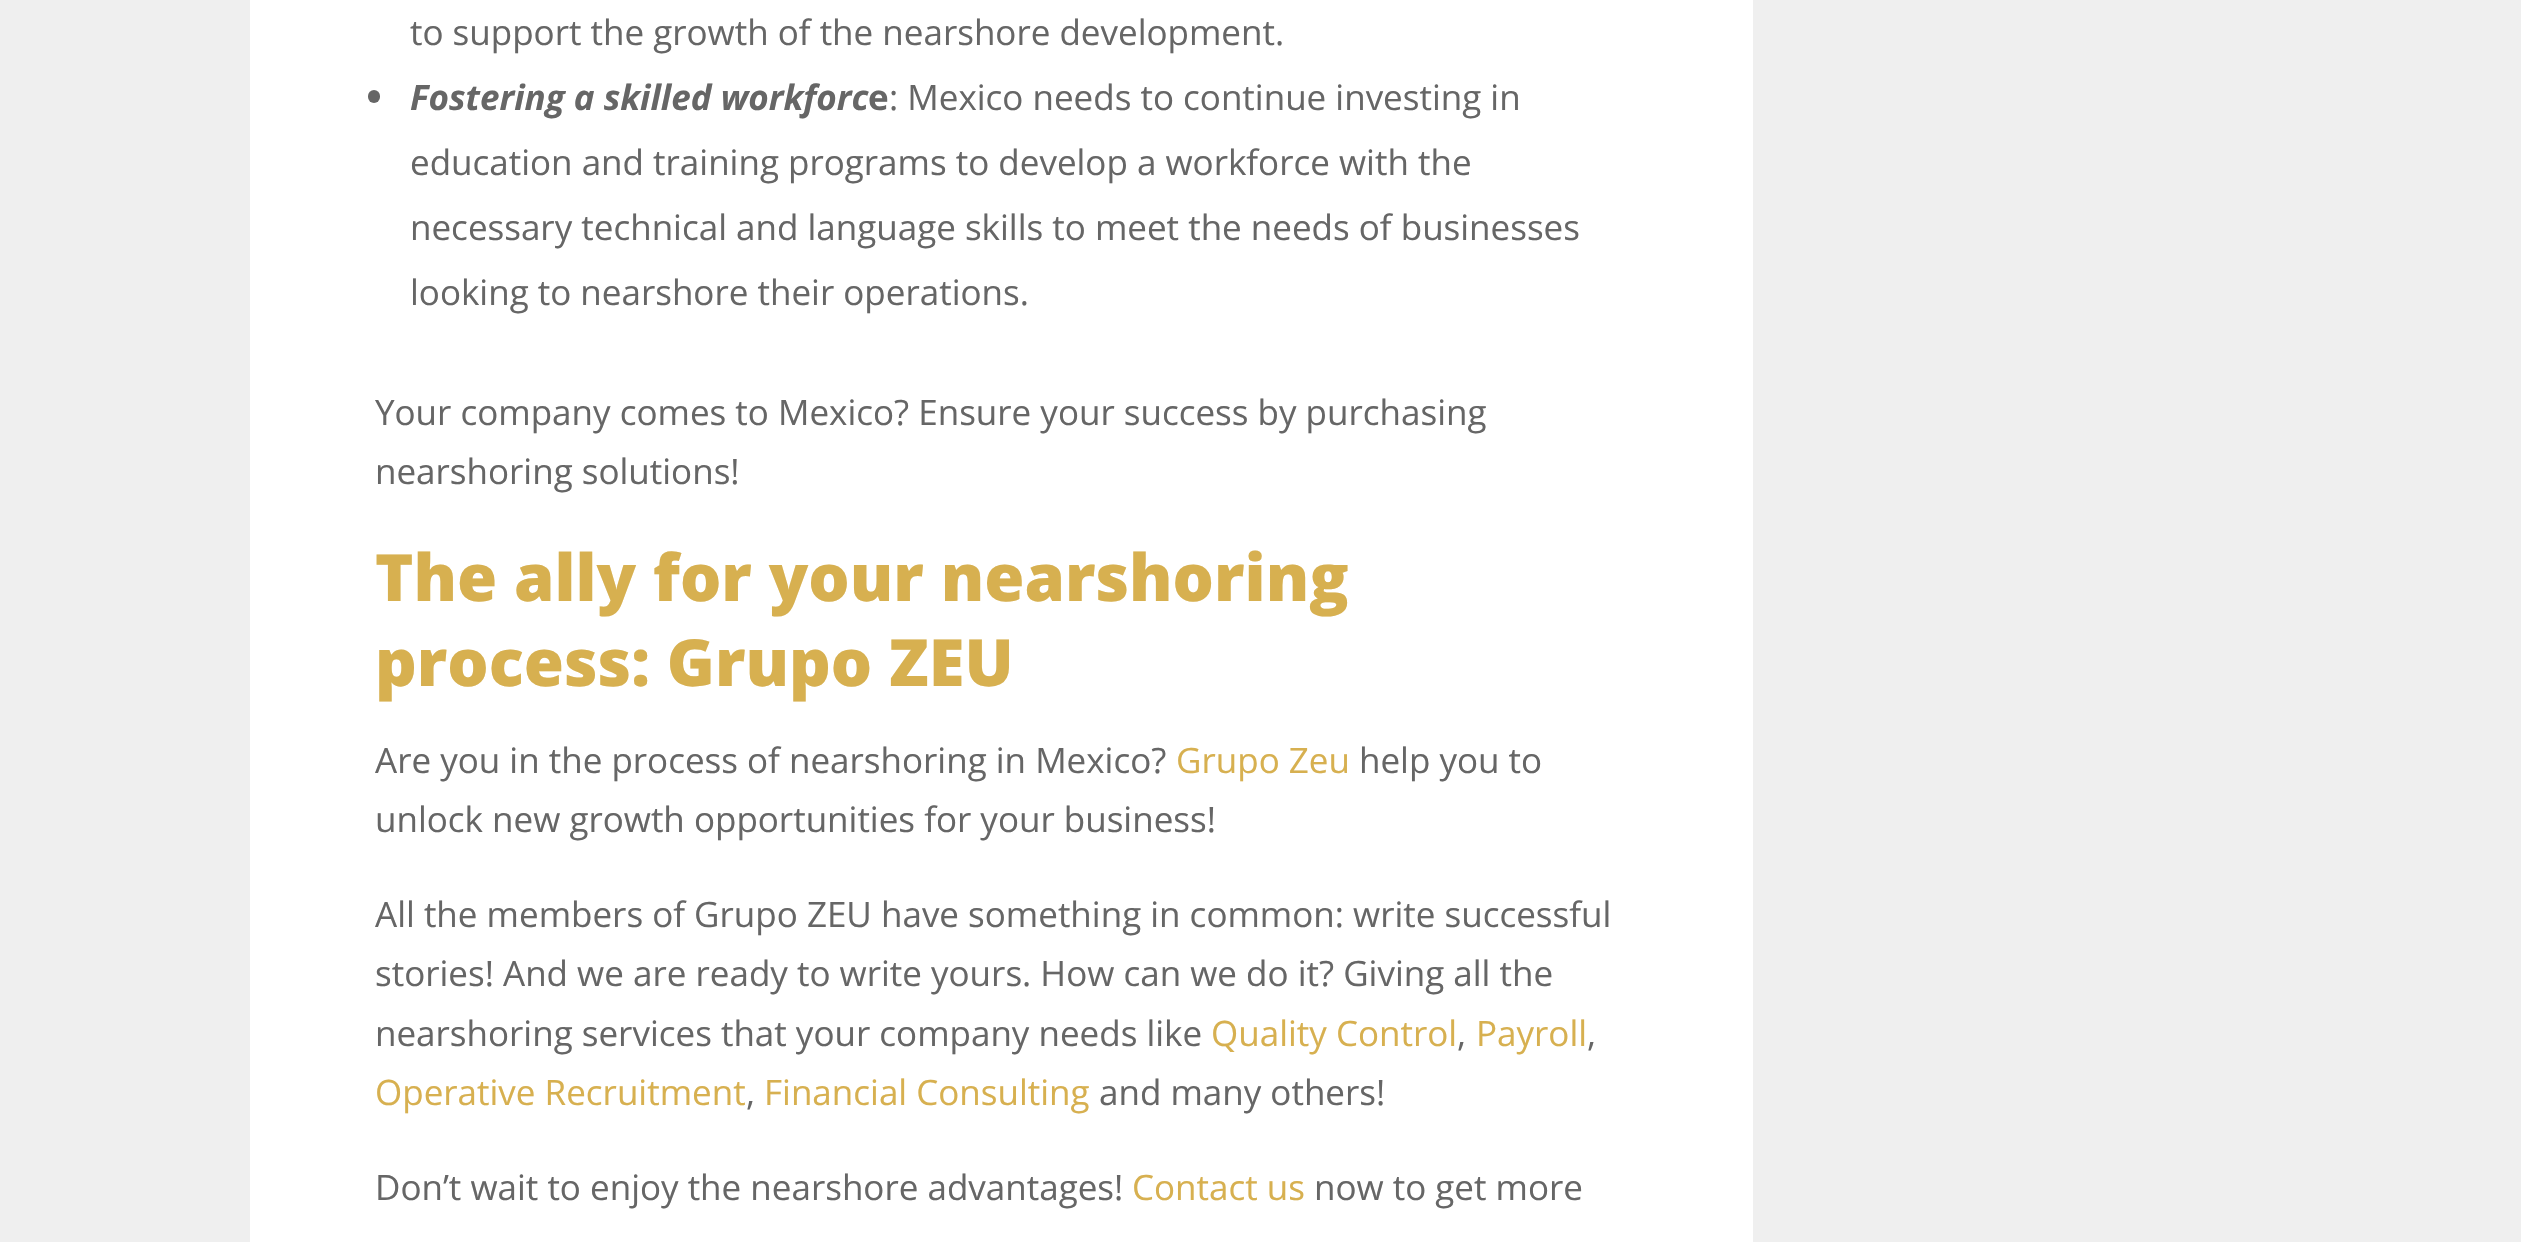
void draw(SkCanvas* c) {
SkPaint p;
p.setAntiAlias(true);
auto F=[&](const char* family, int weight, float size, bool italic = false){SkFontStyle style(weight, SkFontStyle::kNormal_Width,italic ? SkFontStyle::kItalic_Slant : SkFontStyle::kUpright_Slant);SkFont result(fontMgr->matchFamilyStyle(family, style), size);result.setSubpixel(true);return result;};
auto T=[&](const char* s, float x, float y, const SkFont& font){c->drawString(s, x, y, font, p);};
auto R=[&](float x, float y, float w, float h){c->drawRect(SkRect::MakeXYWH(x, y, w, h), p);};
auto Q=[&](float x, float y, float w, float h, float radius){c->drawRoundRect(SkRect::MakeXYWH(x, y, w, h), radius, radius, p);};
c->clear(0xffefefef);
p.setColor(0xffffffff);
R(250,0,1503,1242);
auto f1 = F("Open Sans",400,35);
p.setColor(0xff666666);
T("to support the growth of the nearshore development.",410,45,f1);
Q(368,90,12,13,6);
auto f2 = F("Open Sans",700,35,true);
T("Fostering a skilled workforc",410,110,f2);
auto f3 = F("Open Sans",700,35);
T("e",868,110,f3);
T(": Mexico needs to continue investing in",889,110,f1);
T("education and training programs to develop a workforce with the",410,175,f1);
T("necessary technical and language skills to meet the needs of businesses",410,240,f1);
T("looking to nearshore their operations.",410,305,f1);
T("Your company comes to Mexico? Ensure your success by purchasing",375,425,f1);
T("nearshoring solutions!",375,484,f1);
auto f4 = F("Open Sans",800,65);
p.setColor(0xffd7b050);
T("The ally for your nearshoring",375,601,f4);
T("process: Grupo ZEU",375,686,f4);
p.setColor(0xff666666);
T("Are you in the process of nearshoring in Mexico?",375,773,f1);
p.setColor(0xffd7b050);
T("Grupo Zeu",1176,773,f1);
p.setColor(0xff666666);
T("help you to",1359,773,f1);
T("unlock new growth opportunities for your business!",375,832,f1);
T("All the members of Grupo ZEU have something in common: write successful",375,927,f1);
T("stories! And we are ready to write yours. How can we do it? Giving all the",375,986,f1);
T("nearshoring services that your company needs like",375,1046,f1);
p.setColor(0xffd7b050);
T("Quality Control",1211,1046,f1);
p.setColor(0xff666666);
T(",",1457,1046,f1);
p.setColor(0xffd7b050);
T("Payroll",1476,1046,f1);
p.setColor(0xff666666);
T(",",1587,1046,f1);
p.setColor(0xffd7b050);
T("Operative Recruitment",375,1105,f1);
p.setColor(0xff666666);
T(",",746,1105,f1);
p.setColor(0xffd7b050);
T("Financial Consulting",764,1105,f1);
p.setColor(0xff666666);
T("and many others!",1099,1105,f1);
T("Don’t wait to enjoy the nearshore advantages!",375,1200,f1);
p.setColor(0xffd7b050);
T("Contact us",1132,1200,f1);
p.setColor(0xff666666);
T("now to get more",1314,1200,f1);
}
